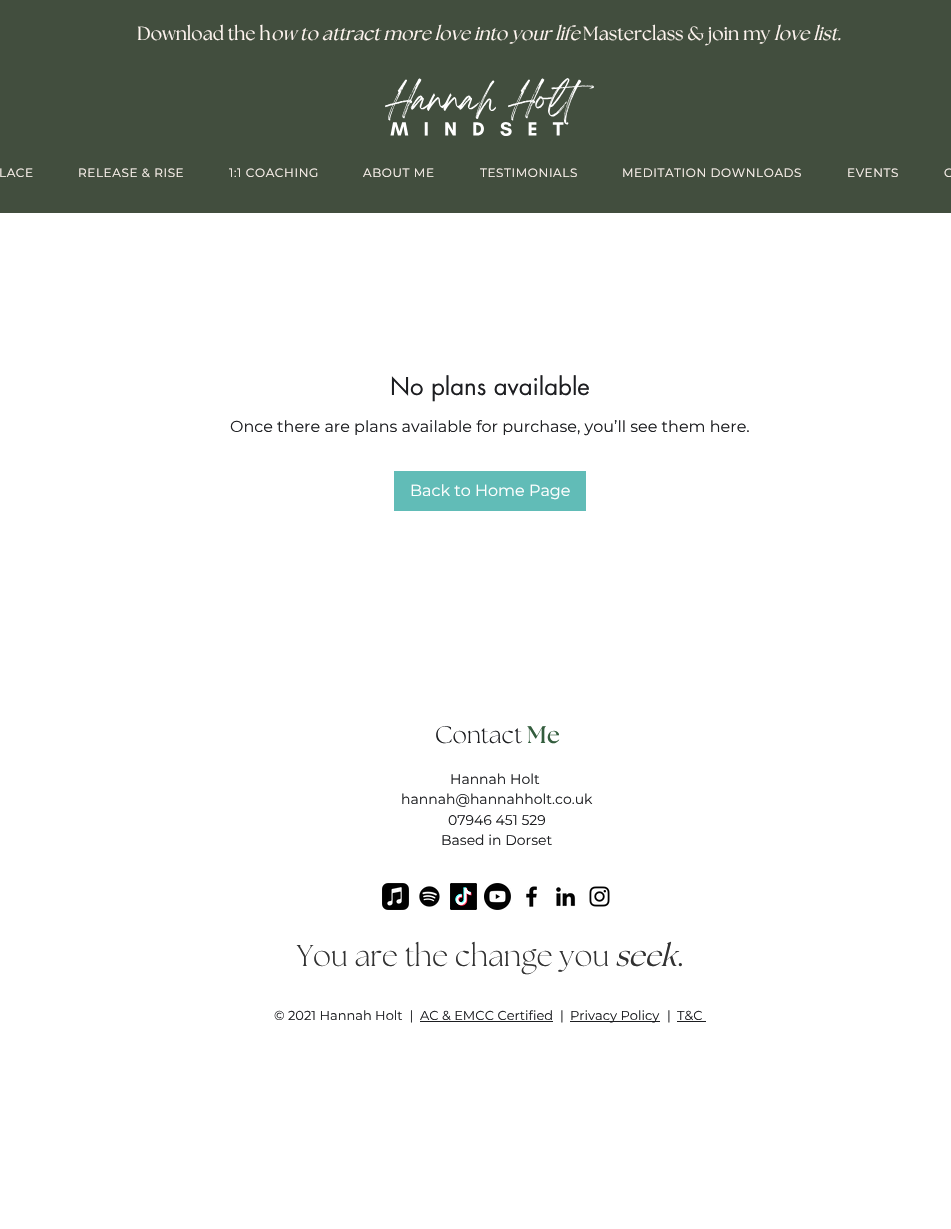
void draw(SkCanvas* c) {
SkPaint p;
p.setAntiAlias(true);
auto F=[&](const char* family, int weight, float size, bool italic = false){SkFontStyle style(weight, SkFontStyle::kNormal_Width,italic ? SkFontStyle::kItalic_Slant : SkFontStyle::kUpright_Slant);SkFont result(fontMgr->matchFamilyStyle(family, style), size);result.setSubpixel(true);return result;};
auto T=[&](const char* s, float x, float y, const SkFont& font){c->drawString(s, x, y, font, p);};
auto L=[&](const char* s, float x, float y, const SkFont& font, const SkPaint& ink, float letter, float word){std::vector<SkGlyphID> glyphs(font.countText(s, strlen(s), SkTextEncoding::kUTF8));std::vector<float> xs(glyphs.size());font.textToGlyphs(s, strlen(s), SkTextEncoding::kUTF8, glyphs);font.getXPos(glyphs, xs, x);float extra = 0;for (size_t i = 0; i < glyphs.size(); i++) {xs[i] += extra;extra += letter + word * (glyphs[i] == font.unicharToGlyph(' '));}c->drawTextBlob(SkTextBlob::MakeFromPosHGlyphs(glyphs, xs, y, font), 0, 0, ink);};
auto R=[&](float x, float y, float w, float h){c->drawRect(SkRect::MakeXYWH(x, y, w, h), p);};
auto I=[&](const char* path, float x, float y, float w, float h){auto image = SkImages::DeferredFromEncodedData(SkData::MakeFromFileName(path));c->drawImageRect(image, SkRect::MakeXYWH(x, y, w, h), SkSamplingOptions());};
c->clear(0xffffffff);
p.setColor(0xff424e3e);
R(0,0,951,213);
auto f1 = F("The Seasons",400,19);
p.setColor(0xfffff5f0);
T("Download the h",137,40,f1);
auto f2 = F("The Seasons",400,19,true);
T("ow to attract more love into your life",271,40,f2);
T("Masterclass & join my",583,40,f1);
T("love list.",774,40,f2);
I("1.png",385,78,209,58);
auto f3 = F("Montserrat",400,12);
L("LACE",-1,177,f3,p,.6,0);
L("RELEASE & RISE",78,177,f3,p,.6,0);
L("1:1 COACHING",229,177,f3,p,.6,0);
L("ABOUT ME",363,177,f3,p,.6,0);
L("TESTIMONIALS",480,177,f3,p,.6,0);
L("MEDITATION DOWNLOADS",622,177,f3,p,.6,0);
L("EVENTS",847,177,f3,p,.6,0);
L("C",944,177,f3,p,.6,0);
auto f4 = F("futura",400,24);
p.setColor(0xff1d1e21);
T("No plans available",390,395,f4);
auto f5 = F("Montserrat",400,16);
T("Once there are plans available for purchase, you’ll see them here.",230,432,f5);
p.setColor(0xff61bcb7);
R(394,471,192,40);
p.setColor(0xffffffff);
T("Back to Home Page",410,496,f5);
auto f6 = F("The Seasons",300,24);
p.setColor(0xff1d1e21);
T("Contact",435,743,f6);
auto f7 = F("The Seasons",700,24);
p.setColor(0xff335d3d);
T("Me",527,743,f7);
auto f8 = F("Montserrat",400,14);
p.setColor(0xff1d1e21);
T("Hannah Holt",450,784,f8);
T("hannah@hannahholt.co.uk",401,804,f8);
T("07946 451 529",448,825,f8);
T("Based in Dorset",441,845,f8);
I("2.png",382,883,27,27);
I("3.png",419,886,21,21);
I("4.png",450,883,27,27);
I("5.png",484,883,27,27);
I("6.png",526,886,11,21);
I("7.png",556,887,20,20);
I("8.png",589,886,21,21);
auto f9 = F("The Seasons",300,30);
p.setColor(0xff323232);
T("You are the change you",297,966,f9);
auto f10 = F("The Seasons",400,30,true);
T("seek",615,966,f10);
auto f11 = F("The Seasons",400,30);
T(".",677,966,f11);
auto f12 = F("Montserrat",400,13);
p.setColor(0xff1d1e21);
T("© 2021 Hannah Holt  |",274,1020,f12);
T("AC & EMCC Certified",420,1020,f12);
R(420,1021,133,1);
T("|",560,1020,f12);
R(570,1021,90,1);
T("Privacy Policy",570,1020,f12);
T("|",667,1020,f12);
T("T&C",677,1020,f12);
R(677,1021,29,1);
}
